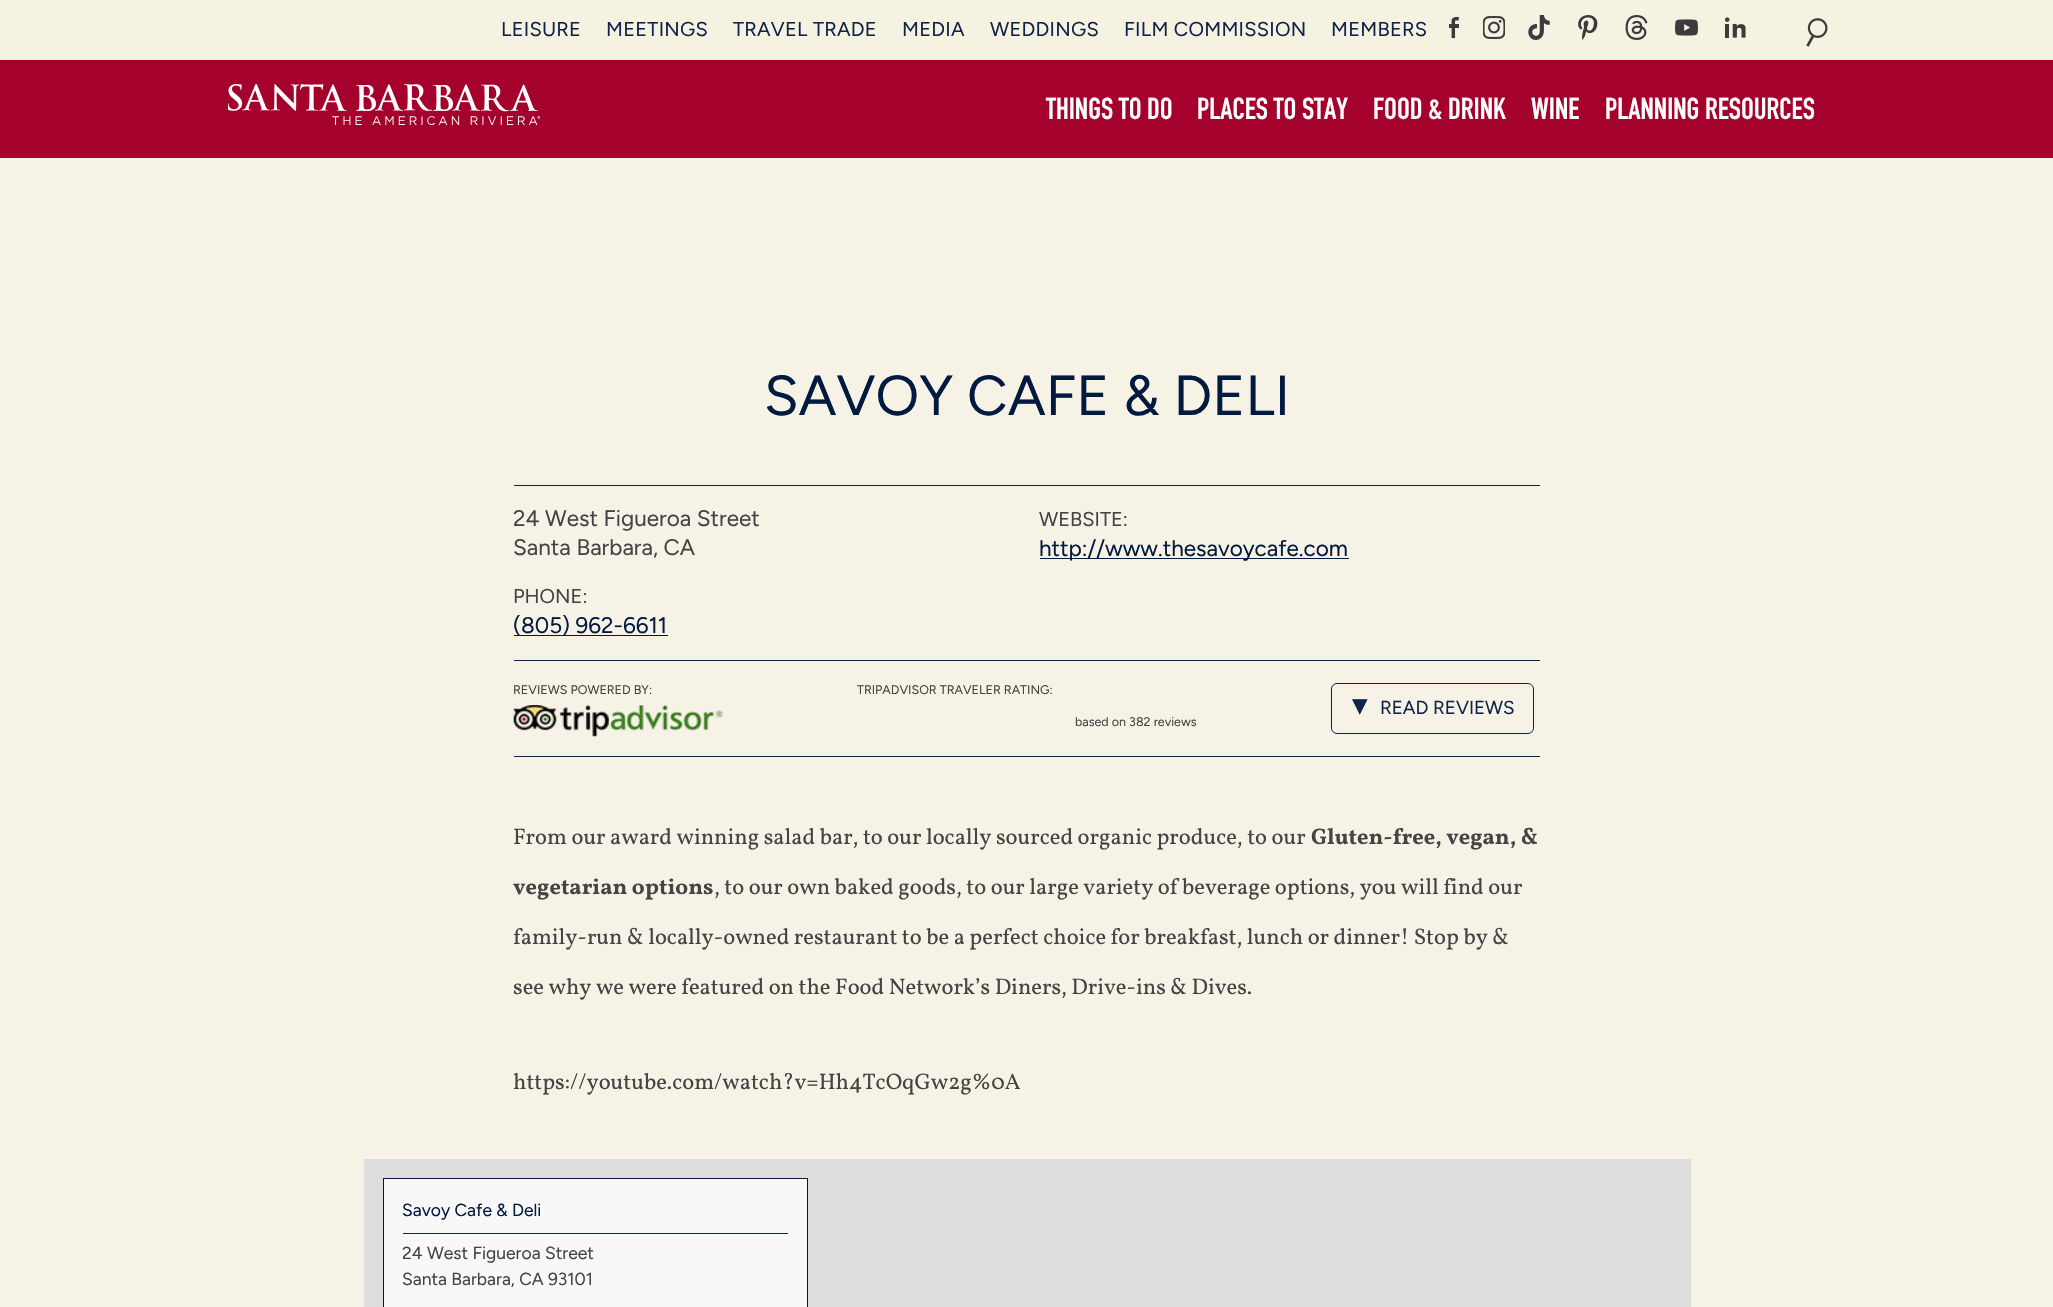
void draw(SkCanvas* c) {
SkPaint p;
p.setAntiAlias(true);
auto F=[&](const char* family, int weight, float size, bool italic = false){SkFontStyle style(weight, SkFontStyle::kNormal_Width,italic ? SkFontStyle::kItalic_Slant : SkFontStyle::kUpright_Slant);SkFont result(fontMgr->matchFamilyStyle(family, style), size);result.setSubpixel(true);return result;};
auto T=[&](const char* s, float x, float y, const SkFont& font){c->drawString(s, x, y, font, p);};
auto L=[&](const char* s, float x, float y, const SkFont& font, const SkPaint& ink, float letter, float word){std::vector<SkGlyphID> glyphs(font.countText(s, strlen(s), SkTextEncoding::kUTF8));std::vector<float> xs(glyphs.size());font.textToGlyphs(s, strlen(s), SkTextEncoding::kUTF8, glyphs);font.getXPos(glyphs, xs, x);float extra = 0;for (size_t i = 0; i < glyphs.size(); i++) {xs[i] += extra;extra += letter + word * (glyphs[i] == font.unicharToGlyph(' '));}c->drawTextBlob(SkTextBlob::MakeFromPosHGlyphs(glyphs, xs, y, font), 0, 0, ink);};
auto R=[&](float x, float y, float w, float h){c->drawRect(SkRect::MakeXYWH(x, y, w, h), p);};
auto I=[&](const char* path, float x, float y, float w, float h){auto image = SkImages::DeferredFromEncodedData(SkData::MakeFromFileName(path));c->drawImageRect(image, SkRect::MakeXYWH(x, y, w, h), SkSamplingOptions());};
c->clear(0xfff6f3e6);
p.setColor(0xfff5f2e2);
R(0,0,2053,60);
auto f1 = F("Figtree",400,20);
p.setColor(0xff112348);
L("LEISURE",501,36,f1,p,.25,0);
L("MEETINGS",606,36,f1,p,.25,0);
L("TRAVEL TRADE",733,36,f1,p,.25,0);
L("MEDIA",902,36,f1,p,.25,0);
L("WEDDINGS",990,36,f1,p,.25,0);
L("FILM COMMISSION",1124,36,f1,p,.25,0);
L("MEMBERS",1331,36,f1,p,.25,0);
I("1.png",1449,16,10,23);
I("2.png",1483,16,22,23);
I("3.png",1528,15,22,25);
I("4.png",1578,15,20,25);
I("5.png",1625,15,23,25);
I("6.png",1675,19,23,17);
I("7.png",1724,17,22,21);
I("8.png",1806,18,22,29);
p.setColor(0xffa4022c);
R(0,60,2053,98);
I("9.png",228,84,312,41);
auto f2 = F("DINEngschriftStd",400,30);
p.setColor(0xffffffff);
T("THINGS TO DO",1046,119,f2);
T("PLACES TO STAY",1197,119,f2);
T("FOOD & DRINK",1373,119,f2);
T("WINE",1531,119,f2);
T("PLANNING RESOURCES",1605,119,f2);
auto f3 = F("Figtree",400,56.25);
p.setColor(0xff021a3f);
T("SAVOY CAFE & DELI",764,415,f3);
p.setColor(0xff112348);
R(514,485,1026,1);
R(514,660,1026,1);
auto f4 = F("Figtree",400,22.5);
p.setColor(0xff444444);
T("24 West Figueroa Street",513,526,f4);
T("Santa Barbara, CA",513,555,f4);
T("PHONE:",513,603,f1);
p.setColor(0xff021a3f);
R(514,635,154,1);
T("(805) 962-6611",513,633,f4);
p.setColor(0xff444444);
T("WEBSITE:",1039,526,f1);
p.setColor(0xff021a3f);
R(1040,558,309,1);
T("http://www.thesavoycafe.com",1039,556,f4);
p.setColor(0xff112348);
R(514,756,1026,1);
auto f5 = F("Figtree",400,12.5);
p.setColor(0xff444444);
T("REVIEWS POWERED BY:",513,694,f5);
I("10.png",513,705,210,32);
T("TRIPADVISOR TRAVELER RATING:",857,694,f5);
T("based on 382 reviews",1075,726,f5);
p.setStroke(true);
p.setStrokeWidth(1);
p.setColor(0xff112348);
c->drawRoundRect(SkRect::MakeXYWH(1331.5,683.5,202,50),5.5,5.5,p);
auto f6 = F("DejaVu Sans",400,31);
p.setStroke(false);
T("▾",1352,715,f6);
auto f7 = F("Figtree",400,18.75);
T("READ REVIEWS",1380,714,f7);
auto f8 = F("Vollkorn",400,22.5);
p.setColor(0xff444444);
T("From our award winning salad bar, to our locally sourced organic produce, to our",513,844,f8);
auto f9 = F("Vollkorn",700,22.5);
T("Gluten-free, vegan, &",1311,844,f9);
T("vegetarian options",513,894,f9);
T(", to our own baked goods, to our large variety of beverage options, you will find our",714,894,f8);
T("family-run & locally-owned restaurant to be a perfect choice for breakfast, lunch or dinner! Stop by &",513,944,f8);
T("see why we were featured on the Food Network’s Diners, Drive-ins & Dives.",513,994,f8);
T("https://youtube.com/watch?v=Hh4TcOqGw2g%0A",513,1089,f8);
p.setColor(0xffdddddd);
R(364,1159,1327,148);
p.setColor(0xfff8f8f8);
c->drawRect(SkRect::MakeXYWH(383.5,1178.5,424,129),p);
p.setStroke(true);
p.setColor(0xff021a3f);
c->drawRect(SkRect::MakeXYWH(383.5,1178.5,424,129),p);
p.setStroke(false);
p.setColor(0xff112348);
R(403,1233,385,1);
auto f10 = F("Figtree",400,17.5);
p.setColor(0xff021a3f);
T("Savoy Cafe & Deli",402,1216,f10);
p.setColor(0xff444444);
T("24 West Figueroa Street",402,1259,f10);
T("Santa Barbara, CA 93101",402,1285,f10);
}
